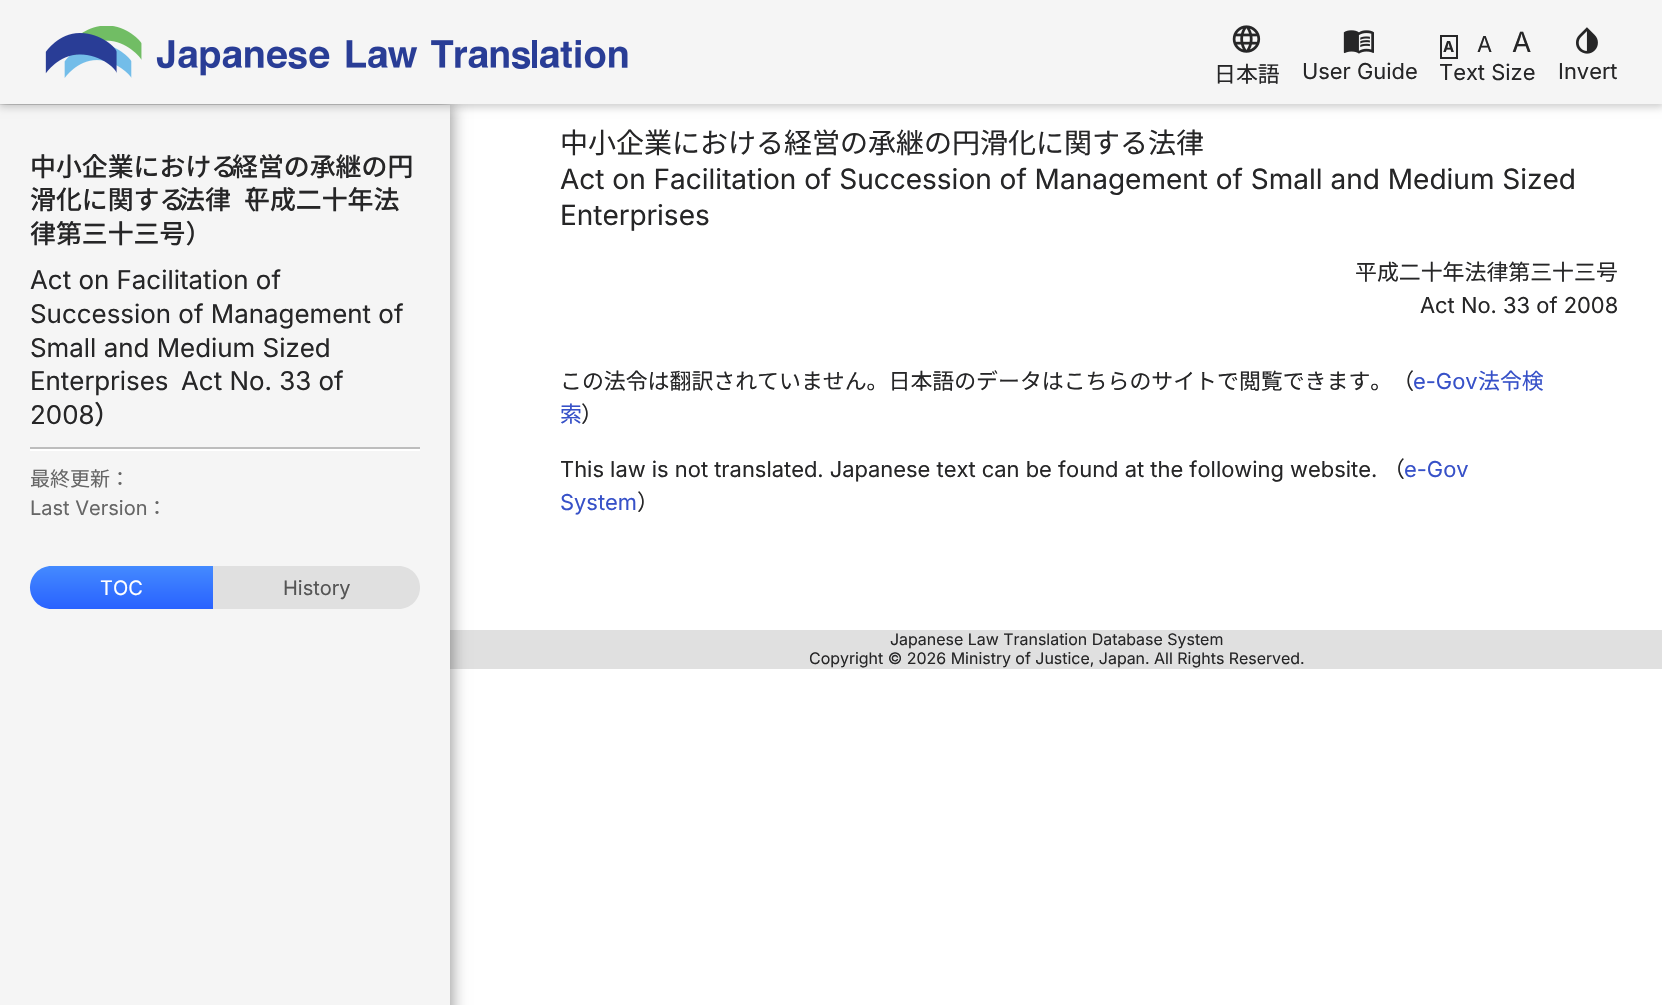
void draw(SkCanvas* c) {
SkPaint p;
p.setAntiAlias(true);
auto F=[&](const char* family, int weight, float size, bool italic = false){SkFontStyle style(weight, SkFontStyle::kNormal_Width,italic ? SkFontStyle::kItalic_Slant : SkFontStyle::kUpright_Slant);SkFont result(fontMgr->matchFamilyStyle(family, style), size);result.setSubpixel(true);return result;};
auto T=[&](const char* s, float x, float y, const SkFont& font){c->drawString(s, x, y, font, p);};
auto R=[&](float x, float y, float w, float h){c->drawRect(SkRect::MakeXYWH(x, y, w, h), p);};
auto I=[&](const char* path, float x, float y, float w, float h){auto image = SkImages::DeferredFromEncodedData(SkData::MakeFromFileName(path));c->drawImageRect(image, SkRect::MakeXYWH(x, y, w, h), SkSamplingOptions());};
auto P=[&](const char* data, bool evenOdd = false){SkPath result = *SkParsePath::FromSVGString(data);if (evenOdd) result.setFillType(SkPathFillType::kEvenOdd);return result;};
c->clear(0xffffffff);
p.setColor(0xffe0e0e0);
R(450,630,1212,39);
p.setColor(0x66000000);
p.setMaskFilter(SkMaskFilter::MakeBlur(kNormal_SkBlurStyle, 7.5));
c->drawRect(SkRect::MakeXYWH(-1,104,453,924),p);
p.setMaskFilter(nullptr);
p.setColor(0xfff5f5f5);
R(0,105,450,900);
p.setColor(0x33000000);
p.setMaskFilter(SkMaskFilter::MakeBlur(kNormal_SkBlurStyle, 4));
c->drawRect(SkRect::MakeXYWH(-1,0,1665,107),p);
p.setMaskFilter(nullptr);
p.setColor(0xfff5f5f5);
R(0,0,1662,104);
I("1.png",45,26,583,52);
I("2.png",1232,25,29,28);
auto f1 = F("Noto Sans JP",400,21.9);
p.setColor(0xff262627);
T("日本語",1214,82,f1);
I("3.png",1343,30,31,24);
auto f2 = F("Inter",400,21.9);
T("User Guide",1302,79,f2);
p.setStroke(true);
p.setStrokeWidth(2);
c->drawRect(SkRect::MakeXYWH(1441,36,16,22),p);
auto f3 = F("Inter",700,15);
p.setStroke(false);
T("A",1443,52,f3);
T("A",1477,52,f2);
auto f4 = F("Inter",400,28);
T("A",1512,52,f4);
T("Text Size",1439,80,f2);
I("4.png",1576,27,22,27);
T("Invert",1558,79,f2);
auto f5 = F("Noto Sans JP",500,25.9);
T("中小企業における",30,176,f5);
T("経営の承継の円",232,176,f5);
T("滑化に関する",30,209,f5);
T("法律（",179,209,f5);
T("平成二十年法",244,209,f5);
T("律第三十三号）",30,243,f5);
auto f6 = F("Inter",400,25.9);
T("Act on Facilitation of",30,289,f6);
T("Succession of Management of",30,323,f6);
T("Small and Medium Sized",30,357,f6);
T("Enterprises",30,390,f6);
T("Act No. 33 of",181,390,f6);
T("2008",30,424,f6);
T("）",94,424,f5);
p.setColor(0xffbdbdbd);
R(30,447,390,2);
p.setColor(0xffffffff);
R(30,449,390,2);
auto f7 = F("Noto Sans JP",400,20);
p.setColor(0xff666666);
T("最終更新：",30,486,f7);
auto f8 = F("Inter",400,20);
T("Last Version",30,515,f8);
T("：",147,515,f7);
{
const SkColor colors[] = {0xff2962ff,0xff448aff};
const float stops[] = {0,1};
const SkPoint ends[] = {{122,609}, {122,566}};
p.setShader(SkGradientShader::MakeLinear(ends, colors, stops, 2, SkTileMode::kClamp));
p.setAlpha(255);
}
c->drawPath(P("M51.5 566h161.5v43h-161.5c-12 0-21.5-9.5-21.5-21.5c0-12 9.5-21.5 21.5-21.5z"),p);
p.setShader(nullptr);
p.setColor(0xffffffff);
T("TOC",100,595,f8);
p.setColor(0xffe0e0e0);
c->drawPath(P("M213 566h185.5c12 0 21.5 9.5 21.5 21.5c0 12-9.5 21.5-21.5 21.5h-185.5z"),p);
p.setColor(0xff555555);
T("History",283,595,f8);
auto f9 = F("Noto Sans JP",400,28);
p.setColor(0xff262627);
T("中小企業における経営の承継の円滑化に関する法律",560,153,f9);
T("Act on Facilitation of Succession of Management of Small and Medium Sized",560,189,f4);
T("Enterprises",560,225,f4);
T("平成二十年法律第三十三号",1355,280,f1);
T("Act No. 33 of 2008",1420,313,f2);
T("この法令は翻訳されていません。日本語のデータはこちらのサイトで閲覧できます。（",560,389,f1);
p.setColor(0xff3751c8);
T("e-Gov",1413,389,f2);
T("法令検",1478,389,f1);
T("索",560,422,f1);
p.setColor(0xff262627);
T("）",581,422,f1);
T("This law is not translated. Japanese text can be found at the following website.",560,477,f2);
T("（",1383,477,f1);
p.setColor(0xff3751c8);
T("e-Gov",1404,477,f2);
T("System",560,510,f2);
p.setColor(0xff262627);
T("）",637,510,f1);
auto f10 = F("Inter",400,15.95);
T("Japanese Law Translation Database System",890,645,f10);
T("Copyright © 2026 Ministry of Justice, Japan. All Rights Reserved.",809,664,f10);
}
